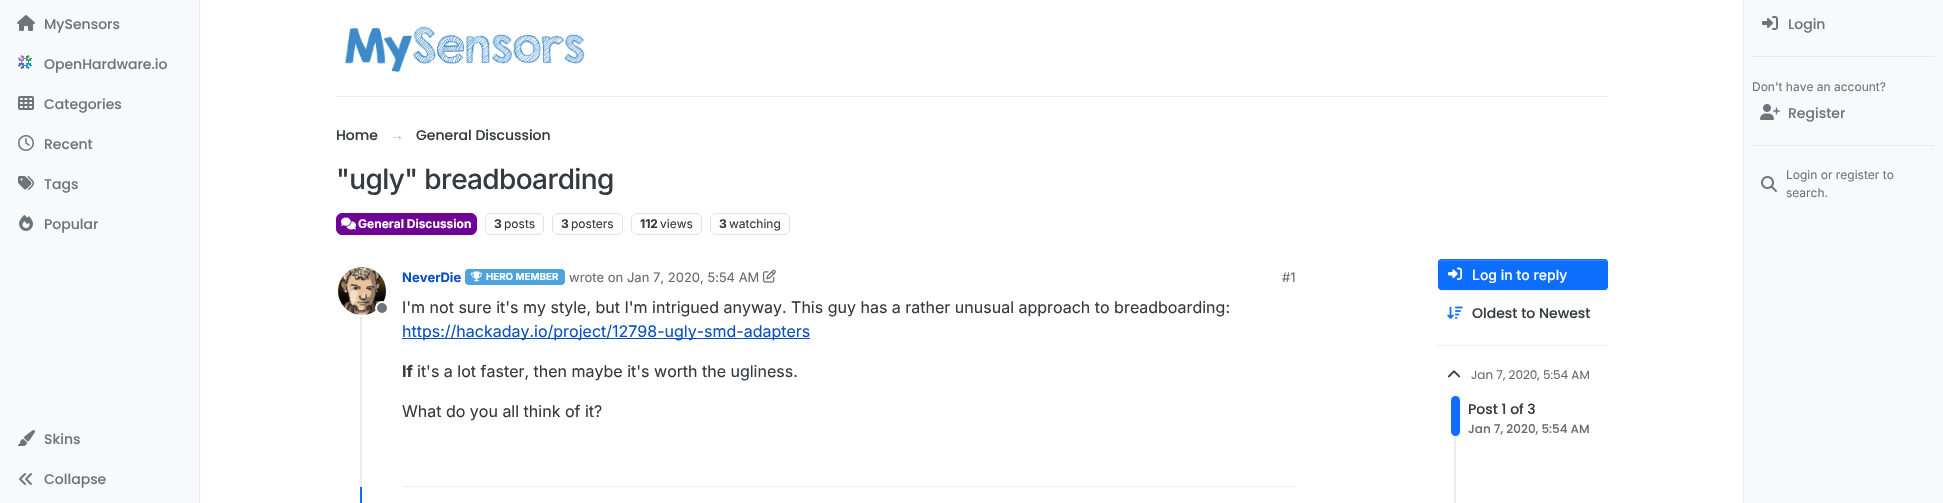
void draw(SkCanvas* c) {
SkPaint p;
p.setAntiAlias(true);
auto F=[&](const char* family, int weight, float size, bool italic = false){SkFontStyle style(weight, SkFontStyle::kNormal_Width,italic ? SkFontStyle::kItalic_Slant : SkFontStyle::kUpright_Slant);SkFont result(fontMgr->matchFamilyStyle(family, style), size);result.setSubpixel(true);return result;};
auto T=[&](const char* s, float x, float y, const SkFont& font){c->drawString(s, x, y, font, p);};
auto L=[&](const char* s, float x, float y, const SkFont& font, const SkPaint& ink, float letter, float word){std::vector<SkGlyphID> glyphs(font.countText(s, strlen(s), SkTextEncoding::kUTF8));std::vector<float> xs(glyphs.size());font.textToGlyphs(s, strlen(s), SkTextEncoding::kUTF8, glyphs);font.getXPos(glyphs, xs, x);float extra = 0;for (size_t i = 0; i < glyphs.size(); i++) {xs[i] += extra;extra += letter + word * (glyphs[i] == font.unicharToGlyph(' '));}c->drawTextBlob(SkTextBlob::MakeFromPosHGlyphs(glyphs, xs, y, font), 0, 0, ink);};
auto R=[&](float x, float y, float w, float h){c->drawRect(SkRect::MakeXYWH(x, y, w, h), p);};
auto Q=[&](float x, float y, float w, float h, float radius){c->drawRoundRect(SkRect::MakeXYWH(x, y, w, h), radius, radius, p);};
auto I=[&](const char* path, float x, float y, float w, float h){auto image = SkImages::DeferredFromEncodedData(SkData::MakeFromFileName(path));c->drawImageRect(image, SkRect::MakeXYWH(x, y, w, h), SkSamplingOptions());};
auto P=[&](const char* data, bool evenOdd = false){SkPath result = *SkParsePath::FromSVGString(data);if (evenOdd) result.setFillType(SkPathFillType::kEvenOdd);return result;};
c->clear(0xffffffff);
p.setColor(0xfff8f9fa);
R(0,0,199,503);
p.setColor(0xffe9ecef);
R(199,0,1,503);
I("1.png",17,15,18,16);
auto f1 = F("Poppins",500,14);
p.setColor(0xff6c757d);
T("MySensors",44,29,f1);
I("2.png",18,55,14,14);
T("OpenHardware.io",44,69,f1);
I("3.png",18,96,16,14);
T("Categories",44,109,f1);
I("4.png",18,135,16,16);
T("Recent",44,149,f1);
I("5.png",18,176,16,14);
T("Tags",44,189,f1);
I("6.png",19,215,14,16);
T("Popular",44,229,f1);
I("7.png",18,430,17,16);
T("Skins",44,444,f1);
I("8.png",19,473,13,12);
T("Collapse",44,484,f1);
p.setColor(0xffe9ecef);
R(336,96,1272,1);
I("9.png",345,26,240,46);
p.setColor(0xff343a40);
T("Home",336,140,f1);
auto f2 = F("Liberation Sans",400,14);
p.setColor(0xffadb5bd);
T("→",390,140,f2);
p.setColor(0xff343a40);
T("General Discussion",416,140,f1);
auto f3 = F("Inter",500,28);
L("\"ugly\" breadboarding",336,189,f3,p,-.6,0);
p.setColor(0xff6f0294);
c->drawRoundRect(SkRect::MakeXYWH(336.5,213.5,140,21),5.5,5.5,p);
p.setStroke(true);
p.setStrokeWidth(1);
c->drawRoundRect(SkRect::MakeXYWH(336.5,213.5,140,21),5.5,5.5,p);
I("10.png",341,217,15,13);
auto f4 = F("Inter",700,12);
p.setStroke(false);
p.setColor(0xffffffff);
T("General Discussion",358,228,f4);
p.setStroke(true);
p.setColor(0xffdee2e6);
c->drawRoundRect(SkRect::MakeXYWH(485.5,213.5,58,21),5.5,5.5,p);
p.setStroke(false);
p.setColor(0xff343a40);
T("3",494,228,f4);
auto f5 = F("Inter",400,12);
T("posts",504,228,f5);
p.setStroke(true);
p.setColor(0xffdee2e6);
c->drawRoundRect(SkRect::MakeXYWH(552.5,213.5,70,21),5.5,5.5,p);
p.setStroke(false);
p.setColor(0xff343a40);
T("3",561,228,f4);
T("posters",571,228,f5);
p.setStroke(true);
p.setColor(0xffdee2e6);
c->drawRoundRect(SkRect::MakeXYWH(631.5,213.5,70,21),5.5,5.5,p);
p.setStroke(false);
p.setColor(0xff343a40);
T("112",640,228,f4);
T("views",660,228,f5);
p.setStroke(true);
p.setColor(0xffdee2e6);
c->drawRoundRect(SkRect::MakeXYWH(710.5,213.5,79,21),5.5,5.5,p);
p.setStroke(false);
p.setColor(0xff343a40);
T("3",719,228,f4);
T("watching",729,228,f5);
p.setColor(0xffe9ecef);
R(360,267,2,220);
p.setStroke(true);
p.setStrokeWidth(2);
p.setColor(0xffffffff);
c->drawCircle(362,291,25,p);
I("11.png",338,267,48,48);
p.setStroke(false);
p.setColor(0xff6c757d);
c->drawCircle(382,308,6,p);
p.setStroke(true);
p.setColor(0xffffffff);
c->drawCircle(382,308,6,p);
auto f6 = F("Inter",700,13);
p.setStroke(false);
p.setColor(0xff0951be);
T("NeverDie",402,282,f6);
p.setColor(0xff4ca3de);
Q(465,269,100,16,4);
I("12.png",471,271,11,11);
auto f7 = F("Inter",700,9.75);
p.setColor(0xffffffff);
T("HERO MEMBER",486,280,f7);
auto f8 = F("Inter",400,13);
p.setColor(0xff676b70);
T("wrote on Jan 7, 2020, 5:54 AM",569,282,f8);
I("13.png",763,269,13,14);
T("#1",1282,282,f8);
auto f9 = F("Inter",400,16);
p.setColor(0xff343a40);
T("I'm not sure it's my style, but I'm intrigued anyway. This guy has a rather unusual approach to breadboarding:",402,313,f9);
p.setColor(0xff0951be);
R(402,338,408,1);
T("https://hackaday.io/project/12798-ugly-smd-adapters",402,337,f9);
auto f10 = F("Inter",700,16);
p.setColor(0xff343a40);
T("If",402,377,f10);
T("it's a lot faster, then maybe it's worth the ugliness.",417,377,f9);
T("What do you all think of it?",402,417,f9);
p.setColor(0xffe9ecef);
R(402,486,894,1);
p.setColor(0xff0d6efd);
R(360,487,2,16);
p.setColor(0x12000000);
p.setMaskFilter(SkMaskFilter::MakeBlur(kNormal_SkBlurStyle, .5));
c->drawRoundRect(SkRect::MakeXYWH(1438,260,170,31),4,4,p);
p.setMaskFilter(nullptr);
p.setColor(0xff0d6efd);
Q(1438,259,170,31,4);
p.setColor(0xff3184fd);
c->drawPath(P("M1442 261h162c2 0 3 1 3 3v-1c0-2-1-3-3-3h-162c-2 0-3 1-3 3v1c0-2 1-3 3-3z"),p);
p.setStroke(true);
p.setStrokeWidth(1);
p.setColor(0xff0d6efd);
c->drawRoundRect(SkRect::MakeXYWH(1438.5,259.5,169,30),3.5,3.5,p);
I("14.png",1448,267,14,13);
auto f11 = F("Inter",500,14);
p.setStroke(false);
p.setColor(0xffffffff);
T("Log in to reply",1472,280,f11);
I("15.png",1447,306,16,13);
p.setColor(0xff343a40);
T("Oldest to Newest",1472,318,f1);
p.setColor(0xffe9ecef);
R(1438,345,170,1);
I("16.png",1447,370,14,8);
auto f12 = F("Poppins",400,12);
p.setColor(0xff676b70);
T("Jan 7, 2020, 5:54 AM",1471,379,f12);
p.setColor(0xffe9ecef);
R(1454,396,2,107);
p.setColor(0xff0d6efd);
Q(1451,396,9,40,4.5);
p.setColor(0xff343a40);
T("Post 1 of 3",1468,414,f1);
auto f13 = F("Poppins",500,12);
p.setColor(0xff676b70);
T("Jan 7, 2020, 5:54 AM",1468,433,f13);
p.setColor(0xfff8f9fa);
R(1744,0,199,503);
p.setColor(0xffe9ecef);
R(1743,0,1,503);
I("17.png",1762,16,16,14);
p.setColor(0xff6c757d);
T("Login",1788,29,f1);
p.setColor(0xffe9ecef);
R(1752,56,183,1);
p.setColor(0xff6c757d);
T("Don't have an account?",1752,91,f5);
I("18.png",1760,104,20,16);
T("Register",1788,118,f1);
p.setColor(0xffe9ecef);
R(1752,145,183,1);
I("19.png",1761,176,16,16);
p.setColor(0xff6c757d);
T("Login or register to",1786,179,f5);
T("search.",1786,197,f5);
}
